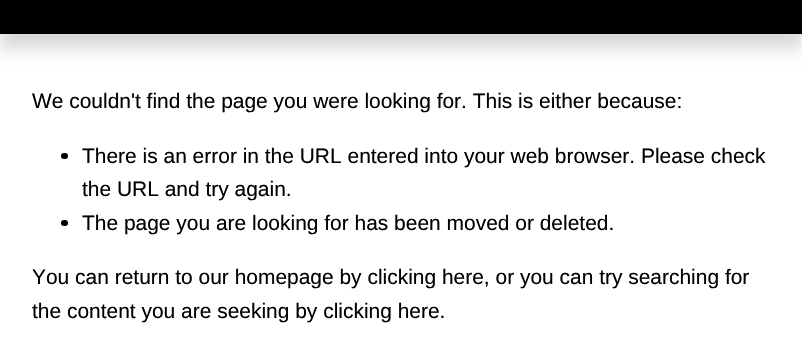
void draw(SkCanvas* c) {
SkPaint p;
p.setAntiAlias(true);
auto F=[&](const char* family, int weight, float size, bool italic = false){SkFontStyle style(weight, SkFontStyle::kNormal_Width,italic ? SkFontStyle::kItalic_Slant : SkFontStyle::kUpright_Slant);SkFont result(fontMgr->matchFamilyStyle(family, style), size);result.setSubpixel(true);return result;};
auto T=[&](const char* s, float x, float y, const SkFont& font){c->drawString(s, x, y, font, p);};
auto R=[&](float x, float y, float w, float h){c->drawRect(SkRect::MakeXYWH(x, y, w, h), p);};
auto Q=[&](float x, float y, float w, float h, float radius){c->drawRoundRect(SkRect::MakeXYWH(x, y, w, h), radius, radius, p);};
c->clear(0xffffffff);
p.setColor(0xffd9d9d9);
p.setMaskFilter(SkMaskFilter::MakeBlur(kNormal_SkBlurStyle, 7.5));
c->drawRect(SkRect::MakeXYWH(0,-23,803,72),p);
p.setMaskFilter(nullptr);
p.setColor(0xff000000);
R(0,0,802,34);
auto f1 = F("Liberation Sans",400,20.95);
T("We couldn't find the page you were looking for. This is either because:",32,108,f1);
Q(61,153,7,6,3);
T("There is an error in the URL entered into your web browser. Please check",82,163,f1);
T("the URL and try again.",82,196,f1);
Q(61,220,7,6,3);
T("The page you are looking for has been moved or deleted.",82,230,f1);
T("You can return to our homepage by clicking here, or you can try searching for",32,284,f1);
T("the content you are seeking by clicking here.",32,318,f1);
}
